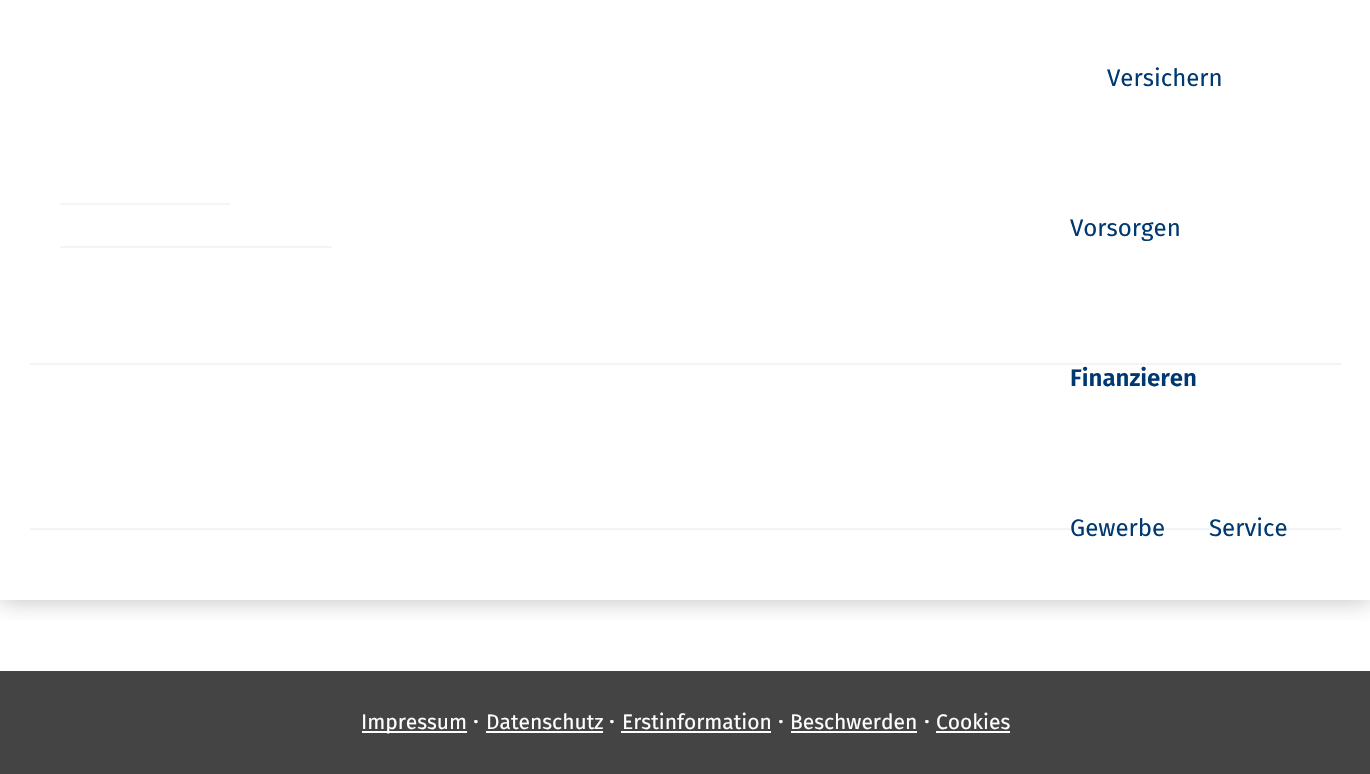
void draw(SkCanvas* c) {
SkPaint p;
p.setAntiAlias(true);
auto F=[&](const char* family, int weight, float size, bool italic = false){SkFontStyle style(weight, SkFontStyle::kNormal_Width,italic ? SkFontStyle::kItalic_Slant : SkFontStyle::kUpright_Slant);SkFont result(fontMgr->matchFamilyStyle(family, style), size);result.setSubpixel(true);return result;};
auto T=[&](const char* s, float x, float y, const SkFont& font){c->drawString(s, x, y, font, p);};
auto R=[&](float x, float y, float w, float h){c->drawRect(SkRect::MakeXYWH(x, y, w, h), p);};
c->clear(0xffffffff);
p.setColor(0xfff5f5f5);
R(60,203,170,2);
p.setColor(0xfff2f5f8);
R(60,246,272,2);
R(30,363,1311,2);
R(30,528,1311,2);
c->save();
c->clipRect(SkRect::MakeXYWH(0,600,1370,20));
p.setColor(0x665a5a5a);
p.setMaskFilter(SkMaskFilter::MakeBlur(kNormal_SkBlurStyle, 12));
c->drawRect(SkRect::MakeXYWH(0,0,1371,600),p);
p.setMaskFilter(nullptr);
c->restore();
auto f1 = F("Fira Sans",400,24);
p.setColor(0xff003971);
T("Versichern",1107,86,f1);
T("Vorsorgen",1070,236,f1);
auto f2 = F("Fira Sans",600,24);
T("Finanzieren",1070,386,f2);
T("Gewerbe",1070,536,f1);
T("Service",1209,536,f1);
p.setColor(0xff444444);
R(0,671,1370,103);
p.setColor(0xffffffff);
R(362,731,105,2);
auto f3 = F("Fira Sans",400,21);
T("Impressum",361,729,f3);
T("·",473,729,f1);
T("Datenschutz",486,729,f3);
R(486,731,117,2);
T("·",609,729,f1);
T("Erstinformation",622,729,f3);
R(621,731,150,2);
T("·",778,729,f1);
T("Beschwerden",790,729,f3);
R(791,731,126,2);
T("·",924,729,f1);
T("Cookies",936,729,f3);
R(936,731,74,2);
}
